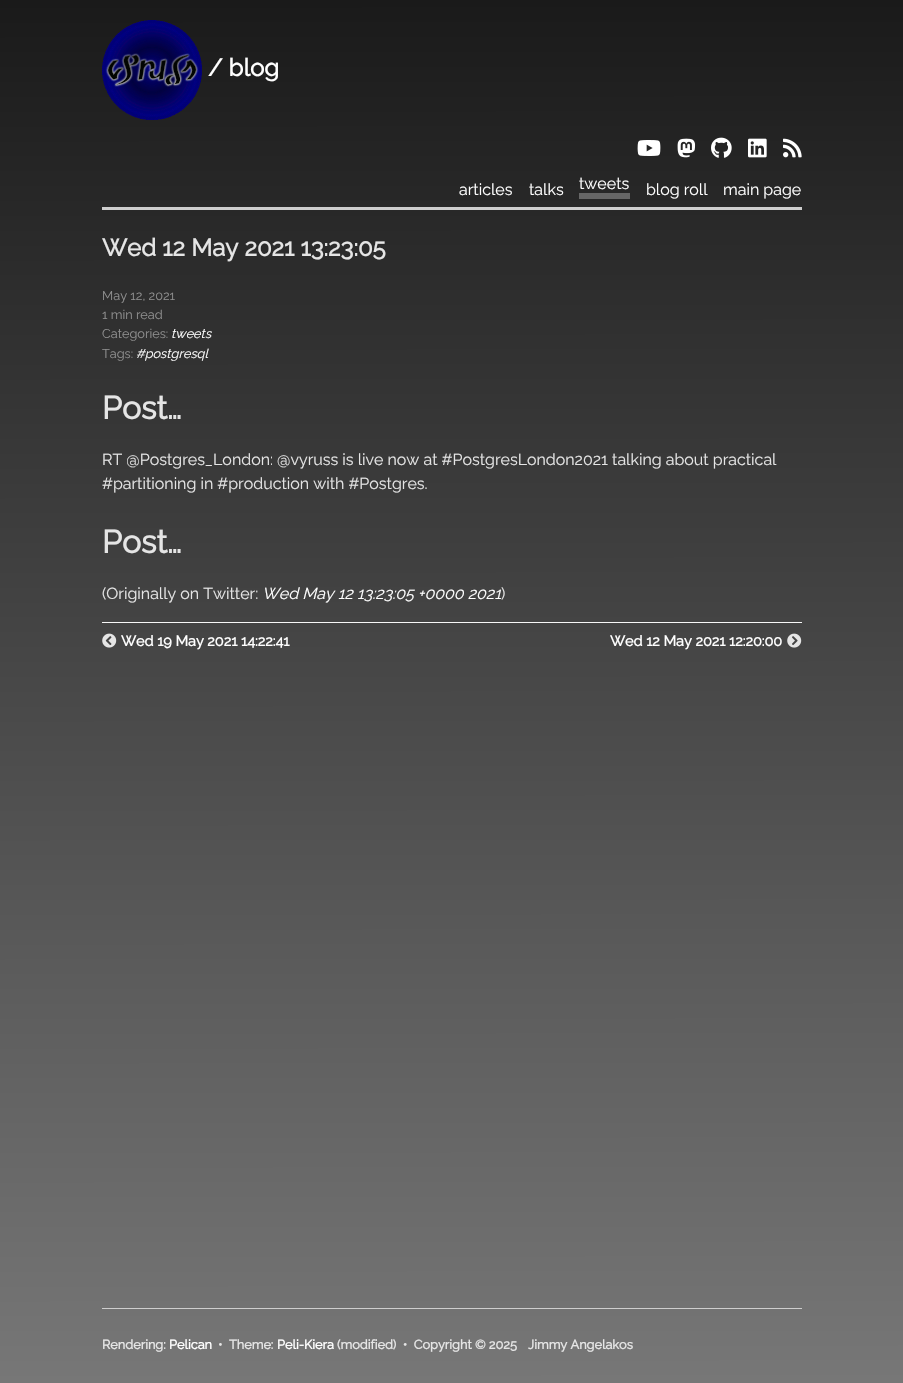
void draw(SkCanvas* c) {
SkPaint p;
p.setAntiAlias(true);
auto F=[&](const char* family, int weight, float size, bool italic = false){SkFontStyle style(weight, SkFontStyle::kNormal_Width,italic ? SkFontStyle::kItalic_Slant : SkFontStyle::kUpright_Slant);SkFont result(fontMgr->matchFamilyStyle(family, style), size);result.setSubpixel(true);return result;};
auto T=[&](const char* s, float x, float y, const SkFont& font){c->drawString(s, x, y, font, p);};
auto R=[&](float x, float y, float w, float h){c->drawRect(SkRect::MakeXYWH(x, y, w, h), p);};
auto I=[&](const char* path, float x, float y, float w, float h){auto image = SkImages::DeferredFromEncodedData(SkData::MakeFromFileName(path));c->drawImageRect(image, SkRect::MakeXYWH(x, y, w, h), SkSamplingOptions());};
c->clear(0xffffffff);
{
const SkColor colors[] = {0xff1a1a1a,0xff777777};
const float stops[] = {0,1};
const SkPoint ends[] = {{451,0}, {452,1383}};
p.setShader(SkGradientShader::MakeLinear(ends, colors, stops, 2, SkTileMode::kClamp));
p.setAlpha(255);
}
R(0,0,903,1383);
I("1.png",102,20,100,100);
auto f1 = F("Raleway",700,24);
p.setShader(nullptr);
p.setColor(0xffffffff);
T("/ blog",208,76,f1);
I("2.png",637,140,24,16);
I("3.png",677,138,19,20);
I("4.png",711,137,21,21);
I("5.png",748,138,19,20);
I("6.png",783,138,19,20);
p.setColor(0xffcecece);
R(102,207,700,3);
auto f2 = F("Raleway",100,16);
p.setColor(0xffffffff);
T("articles",459,195,f2);
T("talks",529,195,f2);
p.setColor(0xff666666);
R(579,193,51,6);
p.setColor(0xffffffff);
T("tweets",579,189,f2);
T("blog roll",646,195,f2);
T("main page",723,195,f2);
p.setColor(0xffe5e5e5);
T("Wed 12 May 2021 13:23:05",102,256,f1);
auto f3 = F("Raleway",100,12.75);
p.setColor(0xff909090);
T("May 12, 2021",102,300,f3);
T("1 min read",102,319,f3);
T("Categories:",102,338,f3);
auto f4 = F("Raleway",100,12.75,true);
p.setColor(0xffffffff);
T("tweets",171,338,f4);
p.setColor(0xff909090);
T("Tags:",102,358,f3);
p.setColor(0xffffffff);
T("#postgresql",136,358,f4);
auto f5 = F("Raleway",700,32);
p.setColor(0xffe5e5e5);
T("Post…",102,419,f5);
T("RT @Postgres_London: @vyruss is live now at #PostgresLondon2021 talking about practical",102,465,f2);
T("#partitioning in #production with #Postgres.",102,489,f2);
T("Post…",102,553,f5);
T("(Originally on Twitter:",102,599,f2);
auto f6 = F("Raleway",100,16,true);
p.setColor(0xffffffff);
T("Wed May 12 13:23:05 +0000 2021",262,599,f6);
p.setColor(0xffe5e5e5);
T(")",501,599,f2);
p.setColor(0xfff7f7f7);
R(102,622,700,1);
I("7.png",102,633,15,15);
auto f7 = F("Raleway",700,14.4);
p.setColor(0xffffffff);
T("Wed 19 May 2021 14:22:41",121,646,f7);
T("Wed 12 May 2021 12:20:00",610,646,f7);
I("8.png",787,633,15,15);
p.setColor(0xffcecece);
R(102,1308,700,1);
auto f8 = F("Raleway",700,12.75);
p.setColor(0xffe5e5e5);
T("Rendering:",102,1349,f8);
p.setColor(0xffffffff);
T("Pelican",169,1349,f8);
p.setColor(0xffe5e5e5);
T("•  Theme:",218,1349,f8);
p.setColor(0xffffffff);
T("Peli-Kiera",277,1349,f8);
p.setColor(0xffe5e5e5);
T("(modified)  •  Copyright © 2025",337,1349,f8);
T("Jimmy Angelakos",528,1349,f8);
}
